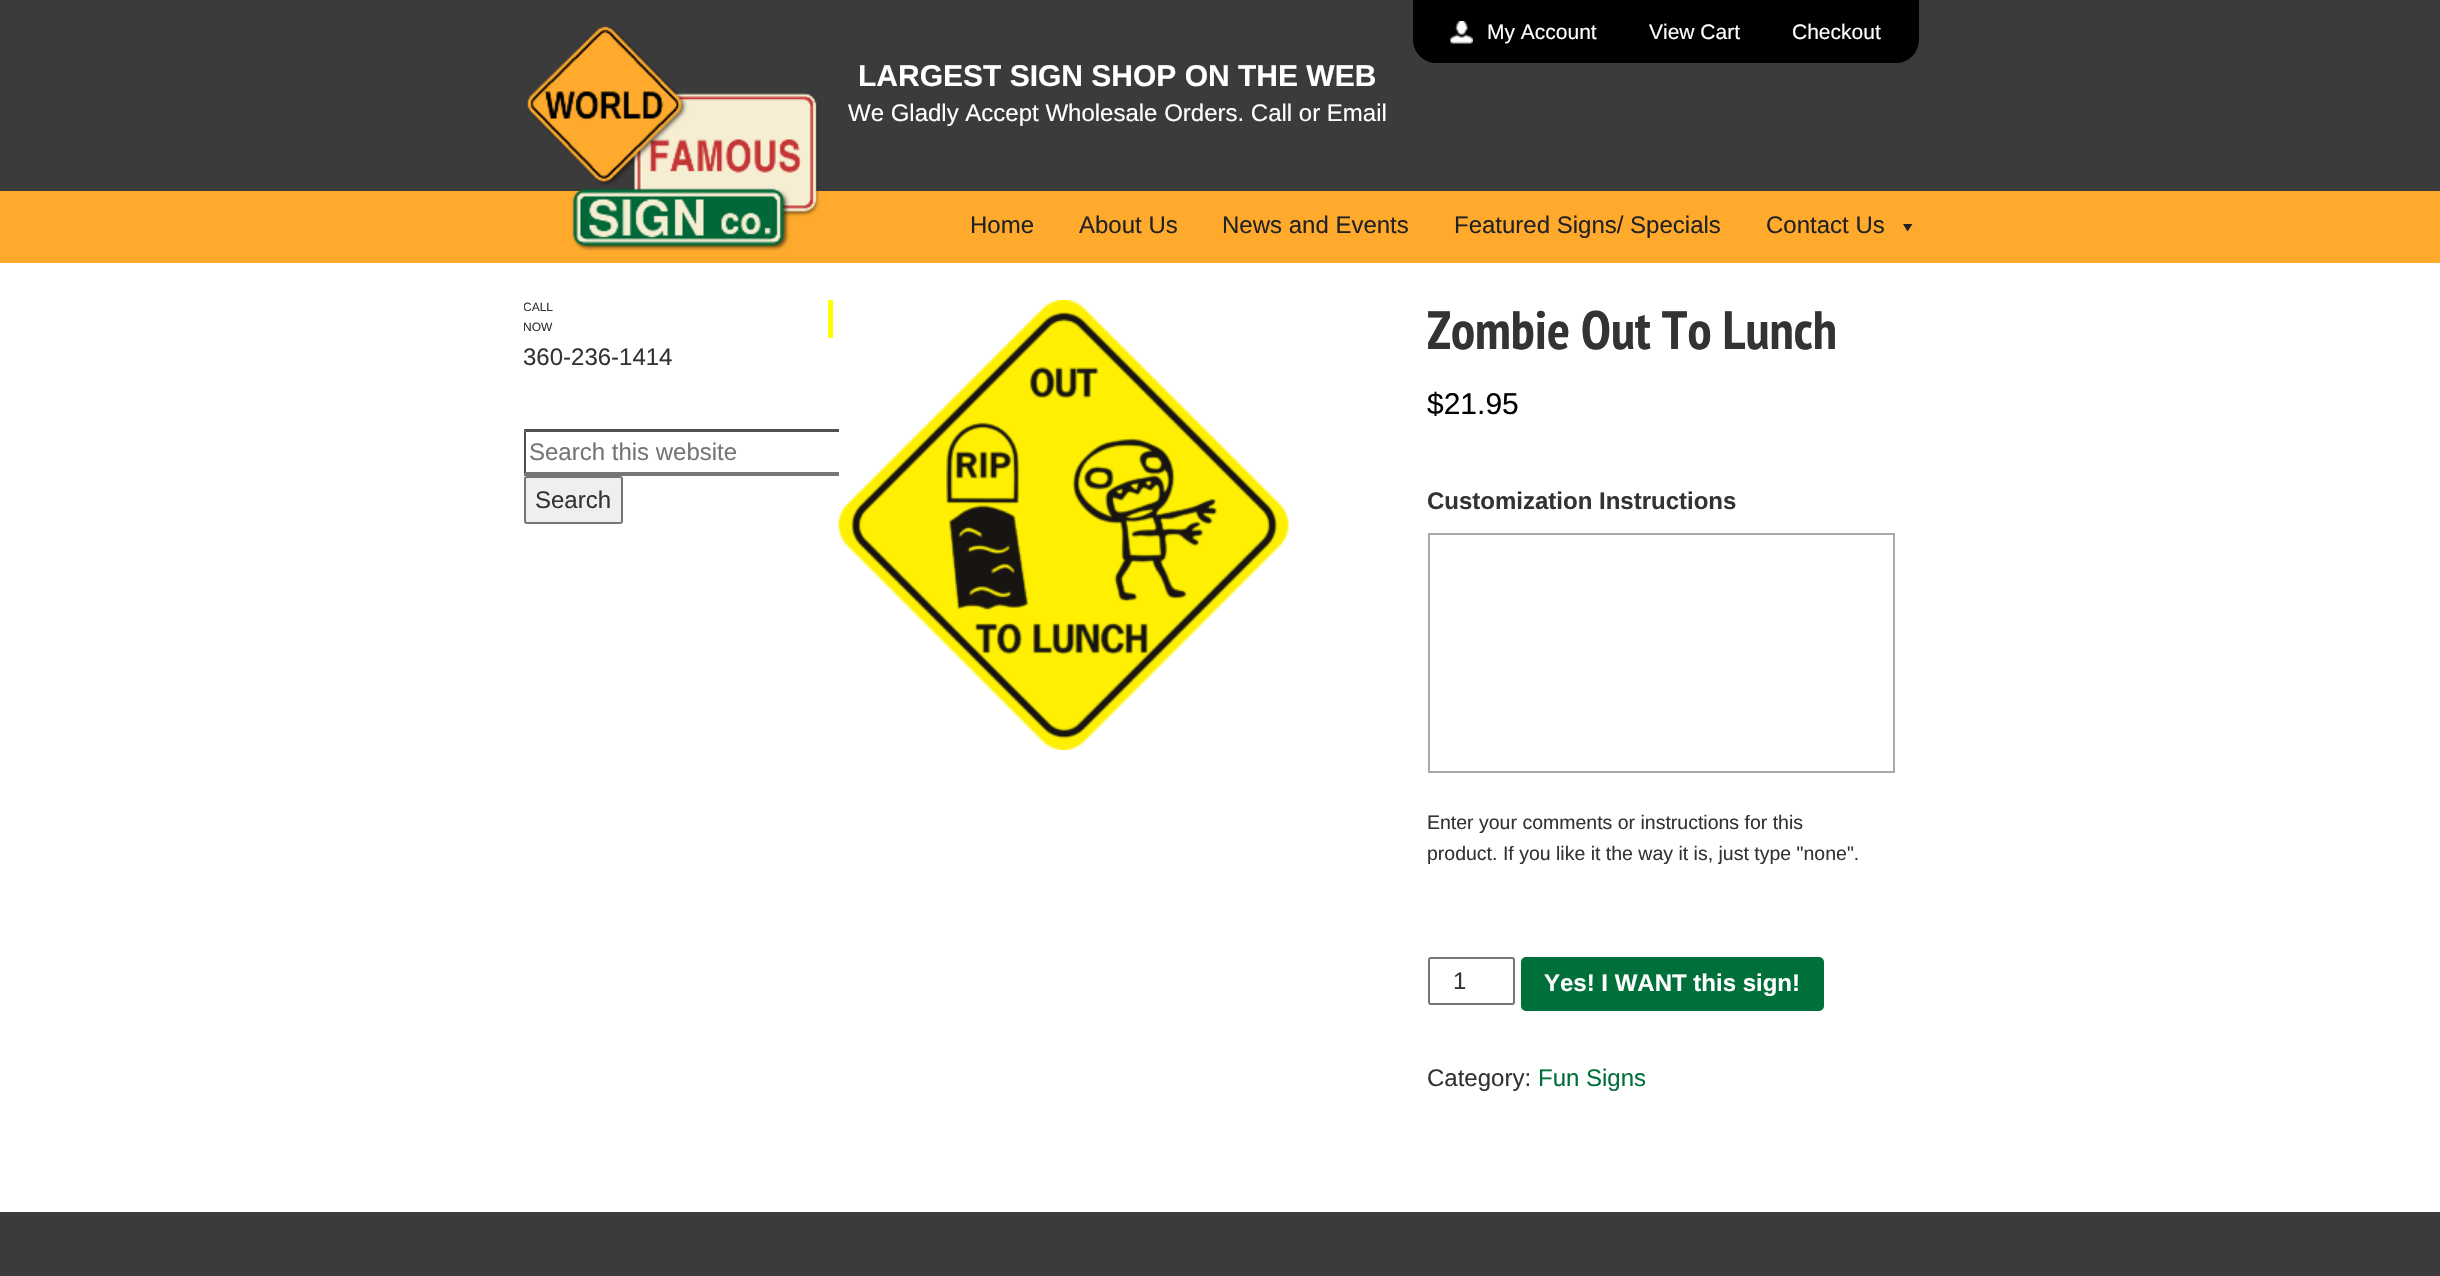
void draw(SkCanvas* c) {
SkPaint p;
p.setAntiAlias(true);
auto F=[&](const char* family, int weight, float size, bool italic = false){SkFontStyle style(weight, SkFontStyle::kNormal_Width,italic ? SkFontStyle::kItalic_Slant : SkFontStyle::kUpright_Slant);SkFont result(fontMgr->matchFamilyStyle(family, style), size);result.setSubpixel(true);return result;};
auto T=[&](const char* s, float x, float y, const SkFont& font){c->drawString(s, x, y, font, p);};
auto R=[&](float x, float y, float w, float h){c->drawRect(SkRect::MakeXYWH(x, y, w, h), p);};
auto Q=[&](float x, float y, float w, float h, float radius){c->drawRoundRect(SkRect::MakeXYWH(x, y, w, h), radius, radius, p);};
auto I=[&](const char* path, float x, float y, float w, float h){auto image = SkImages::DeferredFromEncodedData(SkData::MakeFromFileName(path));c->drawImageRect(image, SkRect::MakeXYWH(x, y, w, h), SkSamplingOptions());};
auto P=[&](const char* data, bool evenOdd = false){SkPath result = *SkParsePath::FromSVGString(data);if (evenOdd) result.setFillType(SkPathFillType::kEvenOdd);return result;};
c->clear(0xff3b3b3b);
p.setColor(0xffffaa2c);
R(0,191,2440,72);
I("1.png",526,26,294,225);
auto f1 = F("Liberation Sans",700,30);
p.setColor(0xffffffff);
T("LARGEST SIGN SHOP ON THE WEB",858,86,f1);
auto f2 = F("Liberation Sans",400,24);
T("We Gladly Accept Wholesale Orders. Call or Email",848,121,f2);
p.setColor(0xff000000);
c->drawPath(P("M1413 0h506v40c0 12.5-10.5 23-23 23h-460c-12.5 0-23-10.5-23-23z"),p);
I("2.png",1450,21,23,23);
auto f3 = F("Liberation Sans",400,21);
p.setColor(0xffffffff);
T("My Account",1487,39,f3);
T("View Cart",1649,39,f3);
T("Checkout",1792,39,f3);
p.setColor(0xff222222);
T("Home",970,233,f2);
T("About Us",1079,233,f2);
T("News and Events",1222,233,f2);
T("Featured Signs/ Specials",1454,233,f2);
T("Contact Us",1766,233,f2);
c->drawPath(P("M1912.5 224l-5 7.5l-4.5-7.5z"),p);
p.setColor(0xffffffff);
R(0,263,2440,949);
p.setColor(0xffffff00);
R(828,300,5,38);
c->save();
c->clipRect(SkRect::MakeXYWH(524,300,315,224));
auto f4 = F("Liberation Sans",400,12);
p.setColor(0xff333333);
T("CALL",523,311,f4);
T("NOW",523,331,f4);
c->restore();
T("360-236-1414",523,365,f2);
I("3.png",838,300,451,450);
c->save();
c->clipRect(SkRect::MakeXYWH(524,300,315,224));
p.setColor(0xff4f4f4f);
c->drawPath(P("M524 429h322l-3 3h-317z"),p);
p.setColor(0xff767676);
c->drawPath(P("M846 476h-322l2-4h317z"),p);
c->restore();
p.setColor(0xff4f4f4f);
c->drawPath(P("M524 476v-47l2 3v40z"),p);
p.setColor(0xff757575);
T("Search this website",529,460,f2);
p.setColor(0xffefefef);
c->drawRoundRect(SkRect::MakeXYWH(525,477,97,46),2,2,p);
p.setStroke(true);
p.setStrokeWidth(2);
p.setColor(0xff767676);
c->drawRoundRect(SkRect::MakeXYWH(525,477,97,46),2,2,p);
p.setStroke(false);
p.setColor(0xff333333);
T("Search",535,508,f2);
auto f5 = F("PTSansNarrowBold",700,54);
T("Zombie Out To Lunch",1427,349,f5);
auto f6 = F("Liberation Sans",400,30);
p.setColor(0xff000000);
T("$21.95",1427,414,f6);
auto f7 = F("Liberation Sans",700,24);
p.setColor(0xff333333);
T("Customization Instructions",1427,509,f7);
p.setStroke(true);
p.setColor(0xffa9a9a9);
c->drawRect(SkRect::MakeXYWH(1429,534,465,238),p);
auto f8 = F("Liberation Sans",400,19.5);
p.setStroke(false);
p.setColor(0xff333333);
T("Enter your comments or instructions for this",1427,829,f8);
T("product. If you like it the way it is, just type \"none\".",1427,860,f8);
p.setStroke(true);
p.setColor(0xff767676);
c->drawRoundRect(SkRect::MakeXYWH(1429,958,85,46),2,2,p);
p.setStroke(false);
p.setColor(0xff333333);
T("1",1453,989,f2);
p.setColor(0xff00703a);
Q(1521,957,303,54,5);
p.setColor(0xffffffff);
T("Yes! I WANT this sign!",1544,991,f7);
p.setColor(0xff333333);
T("Category:",1427,1086,f2);
p.setColor(0xff00703a);
T("Fun Signs",1538,1086,f2);
}
